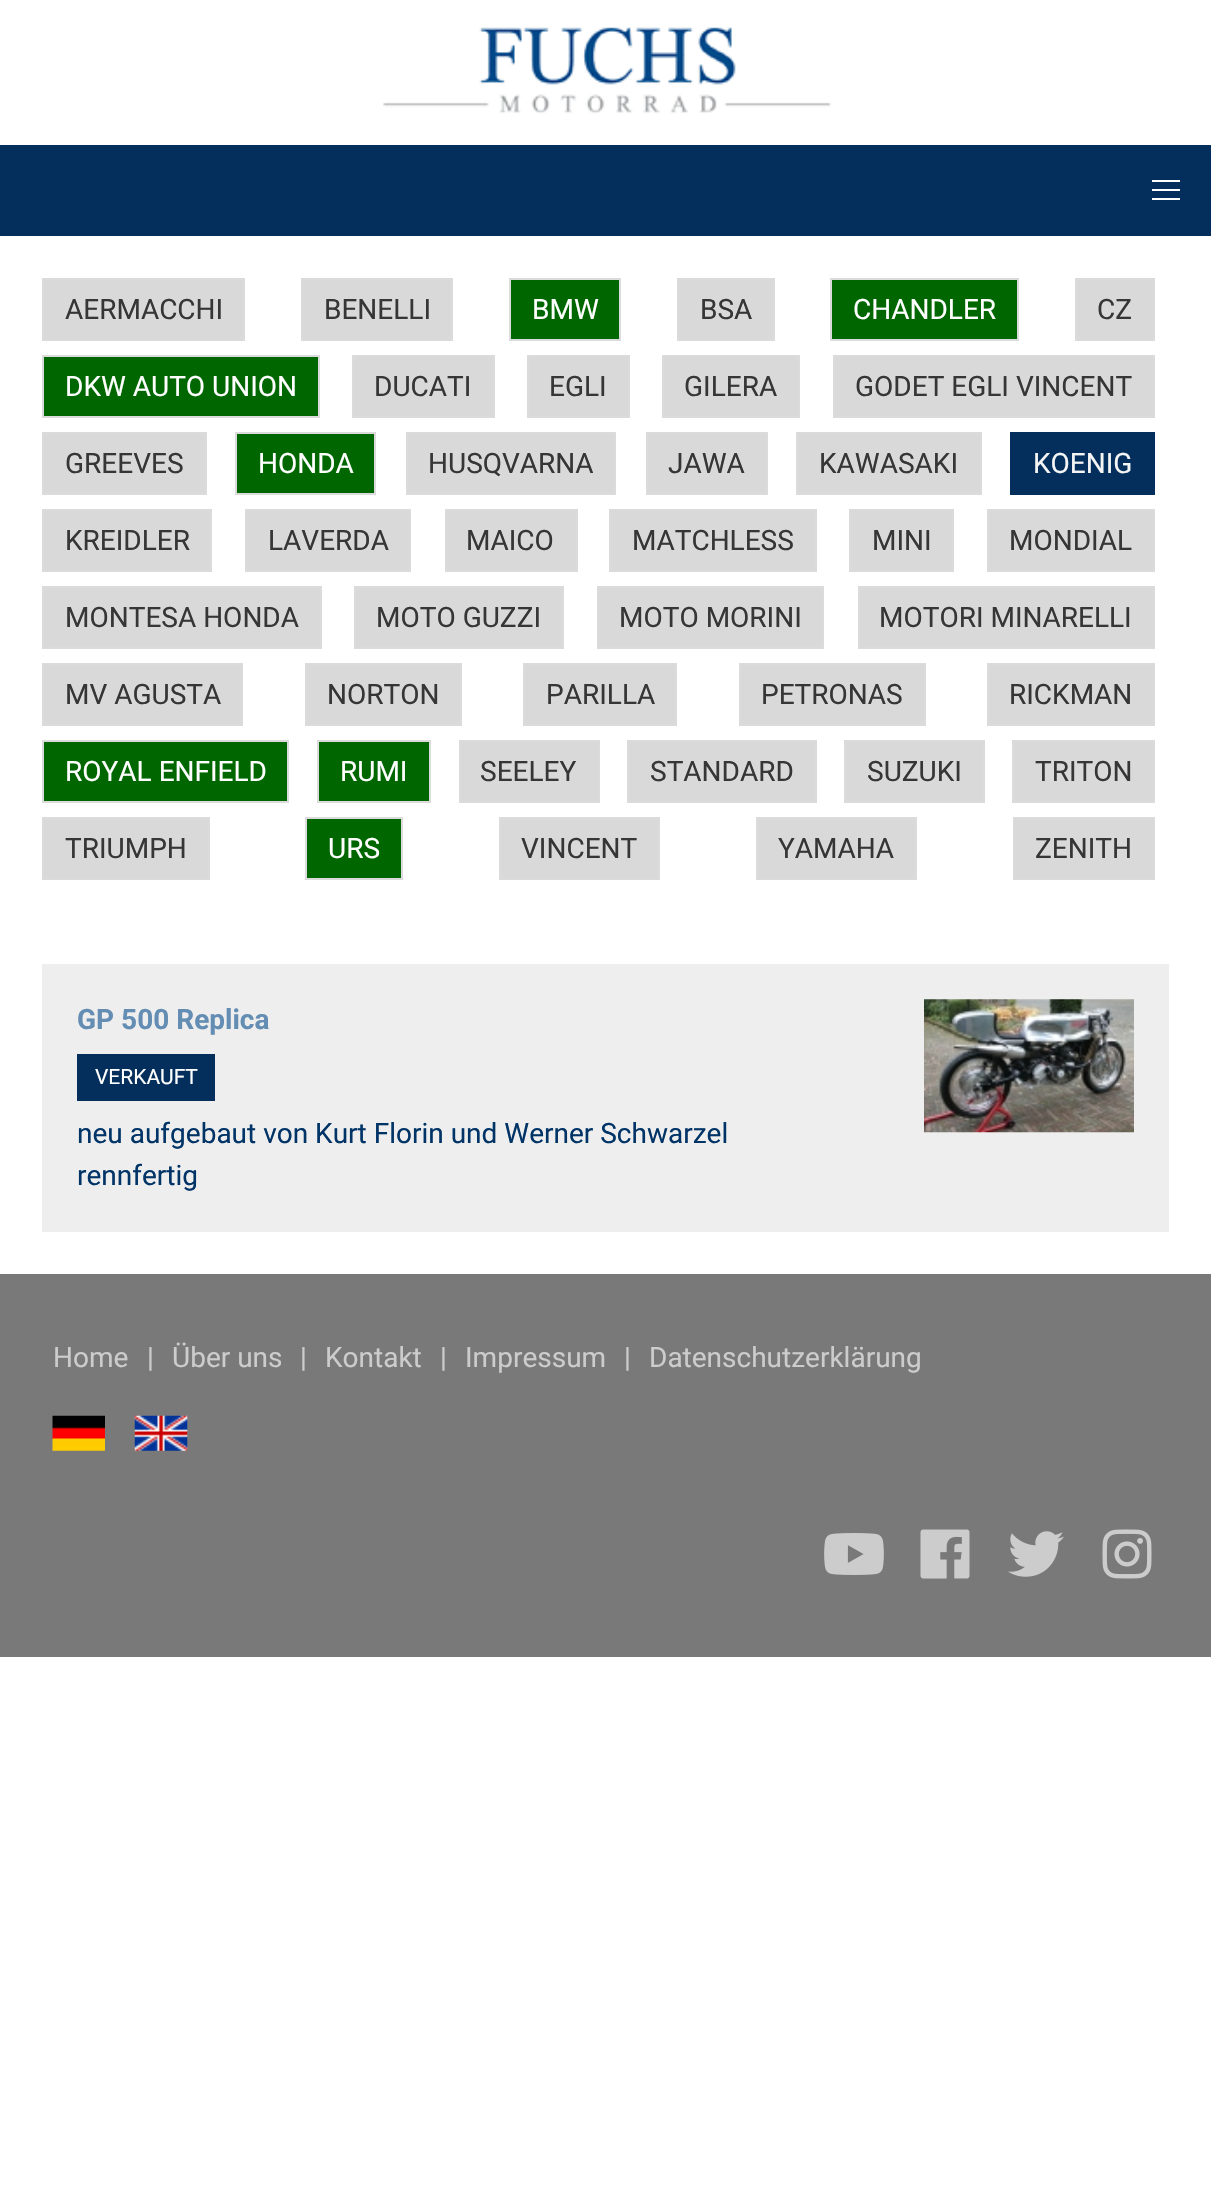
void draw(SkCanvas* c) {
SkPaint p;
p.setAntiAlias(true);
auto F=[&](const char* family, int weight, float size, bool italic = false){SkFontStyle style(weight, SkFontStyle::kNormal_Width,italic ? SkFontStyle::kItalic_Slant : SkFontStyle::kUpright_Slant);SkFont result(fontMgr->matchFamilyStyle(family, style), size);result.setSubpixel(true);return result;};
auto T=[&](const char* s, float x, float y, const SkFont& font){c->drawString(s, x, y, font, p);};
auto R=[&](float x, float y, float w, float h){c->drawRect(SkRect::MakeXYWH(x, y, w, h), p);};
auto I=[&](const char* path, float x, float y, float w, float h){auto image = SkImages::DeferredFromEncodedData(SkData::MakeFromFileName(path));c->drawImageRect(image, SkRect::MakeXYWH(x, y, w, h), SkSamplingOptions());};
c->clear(0xffffffff);
I("1.png",383,27,449,87);
p.setColor(0xff042f5c);
R(0,145,1211,91);
p.setColor(0xffffffff);
R(1152,180,28,2);
R(1152,189,28,2);
R(1152,198,28,2);
p.setColor(0xffd9d9d9);
c->drawRect(SkRect::MakeXYWH(43,279,201,61),p);
p.setStroke(true);
p.setStrokeWidth(2);
p.setColor(0xffdbdbdb);
c->drawRect(SkRect::MakeXYWH(43,279,201,61),p);
auto f1 = F("Roboto",400,28);
p.setStroke(false);
p.setColor(0xff363636);
T("AERMACCHI",65,319,f1);
p.setColor(0xffd9d9d9);
c->drawRect(SkRect::MakeXYWH(302,279,150,61),p);
p.setStroke(true);
p.setColor(0xffdbdbdb);
c->drawRect(SkRect::MakeXYWH(302,279,150,61),p);
p.setStroke(false);
p.setColor(0xff363636);
T("BENELLI",324,319,f1);
p.setColor(0xff006600);
c->drawRect(SkRect::MakeXYWH(510,279,110,61),p);
p.setStroke(true);
p.setColor(0xffdbdbdb);
c->drawRect(SkRect::MakeXYWH(510,279,110,61),p);
p.setStroke(false);
p.setColor(0xffffffff);
T("BMW",532,319,f1);
p.setColor(0xffd9d9d9);
c->drawRect(SkRect::MakeXYWH(678,279,96,61),p);
p.setStroke(true);
p.setColor(0xffdbdbdb);
c->drawRect(SkRect::MakeXYWH(678,279,96,61),p);
p.setStroke(false);
p.setColor(0xff363636);
T("BSA",700,319,f1);
p.setColor(0xff006600);
c->drawRect(SkRect::MakeXYWH(831,279,187,61),p);
p.setStroke(true);
p.setColor(0xffdbdbdb);
c->drawRect(SkRect::MakeXYWH(831,279,187,61),p);
p.setStroke(false);
p.setColor(0xffffffff);
T("CHANDLER",853,319,f1);
p.setColor(0xffd9d9d9);
c->drawRect(SkRect::MakeXYWH(1076,279,78,61),p);
p.setStroke(true);
p.setColor(0xffdbdbdb);
c->drawRect(SkRect::MakeXYWH(1076,279,78,61),p);
p.setStroke(false);
p.setColor(0xff363636);
T("CZ",1097,319,f1);
p.setColor(0xff006600);
c->drawRect(SkRect::MakeXYWH(43,356,276,61),p);
p.setStroke(true);
p.setColor(0xffdbdbdb);
c->drawRect(SkRect::MakeXYWH(43,356,276,61),p);
p.setStroke(false);
p.setColor(0xffffffff);
T("DKW AUTO UNION",65,396,f1);
p.setColor(0xffd9d9d9);
c->drawRect(SkRect::MakeXYWH(353,356,141,61),p);
p.setStroke(true);
p.setColor(0xffdbdbdb);
c->drawRect(SkRect::MakeXYWH(353,356,141,61),p);
p.setStroke(false);
p.setColor(0xff363636);
T("DUCATI",374,396,f1);
p.setColor(0xffd9d9d9);
c->drawRect(SkRect::MakeXYWH(528,356,101,61),p);
p.setStroke(true);
p.setColor(0xffdbdbdb);
c->drawRect(SkRect::MakeXYWH(528,356,101,61),p);
p.setStroke(false);
p.setColor(0xff363636);
T("EGLI",549,396,f1);
p.setColor(0xffd9d9d9);
c->drawRect(SkRect::MakeXYWH(663,356,136,61),p);
p.setStroke(true);
p.setColor(0xffdbdbdb);
c->drawRect(SkRect::MakeXYWH(663,356,136,61),p);
p.setStroke(false);
p.setColor(0xff363636);
T("GILERA",684,396,f1);
p.setColor(0xffd9d9d9);
c->drawRect(SkRect::MakeXYWH(834,356,320,61),p);
p.setStroke(true);
p.setColor(0xffdbdbdb);
c->drawRect(SkRect::MakeXYWH(834,356,320,61),p);
p.setStroke(false);
p.setColor(0xff363636);
T("GODET EGLI VINCENT",855,396,f1);
p.setColor(0xffd9d9d9);
c->drawRect(SkRect::MakeXYWH(43,433,163,61),p);
p.setStroke(true);
p.setColor(0xffdbdbdb);
c->drawRect(SkRect::MakeXYWH(43,433,163,61),p);
p.setStroke(false);
p.setColor(0xff363636);
T("GREEVES",65,473,f1);
p.setColor(0xff006600);
c->drawRect(SkRect::MakeXYWH(236,433,139,61),p);
p.setStroke(true);
p.setColor(0xffdbdbdb);
c->drawRect(SkRect::MakeXYWH(236,433,139,61),p);
p.setStroke(false);
p.setColor(0xffffffff);
T("HONDA",258,473,f1);
p.setColor(0xffd9d9d9);
c->drawRect(SkRect::MakeXYWH(407,433,208,61),p);
p.setStroke(true);
p.setColor(0xffdbdbdb);
c->drawRect(SkRect::MakeXYWH(407,433,208,61),p);
p.setStroke(false);
p.setColor(0xff363636);
T("HUSQVARNA",428,473,f1);
p.setColor(0xffd9d9d9);
c->drawRect(SkRect::MakeXYWH(647,433,120,61),p);
p.setStroke(true);
p.setColor(0xffdbdbdb);
c->drawRect(SkRect::MakeXYWH(647,433,120,61),p);
p.setStroke(false);
p.setColor(0xff363636);
T("JAWA",668,473,f1);
p.setColor(0xffd9d9d9);
c->drawRect(SkRect::MakeXYWH(797,433,184,61),p);
p.setStroke(true);
p.setColor(0xffdbdbdb);
c->drawRect(SkRect::MakeXYWH(797,433,184,61),p);
p.setStroke(false);
p.setColor(0xff363636);
T("KAWASAKI",819,473,f1);
p.setColor(0xff042f5c);
R(1010,432,145,63);
p.setColor(0xfff5f5f5);
T("KOENIG",1033,473,f1);
p.setColor(0xffd9d9d9);
c->drawRect(SkRect::MakeXYWH(43,510,168,61),p);
p.setStroke(true);
p.setColor(0xffdbdbdb);
c->drawRect(SkRect::MakeXYWH(43,510,168,61),p);
p.setStroke(false);
p.setColor(0xff363636);
T("KREIDLER",65,550,f1);
p.setColor(0xffd9d9d9);
c->drawRect(SkRect::MakeXYWH(246,510,164,61),p);
p.setStroke(true);
p.setColor(0xffdbdbdb);
c->drawRect(SkRect::MakeXYWH(246,510,164,61),p);
p.setStroke(false);
p.setColor(0xff363636);
T("LAVERDA",268,550,f1);
p.setColor(0xffd9d9d9);
c->drawRect(SkRect::MakeXYWH(446,510,131,61),p);
p.setStroke(true);
p.setColor(0xffdbdbdb);
c->drawRect(SkRect::MakeXYWH(446,510,131,61),p);
p.setStroke(false);
p.setColor(0xff363636);
T("MAICO",466,550,f1);
p.setColor(0xffd9d9d9);
c->drawRect(SkRect::MakeXYWH(610,510,206,61),p);
p.setStroke(true);
p.setColor(0xffdbdbdb);
c->drawRect(SkRect::MakeXYWH(610,510,206,61),p);
p.setStroke(false);
p.setColor(0xff363636);
T("MATCHLESS",632,550,f1);
p.setColor(0xffd9d9d9);
c->drawRect(SkRect::MakeXYWH(850,510,103,61),p);
p.setStroke(true);
p.setColor(0xffdbdbdb);
c->drawRect(SkRect::MakeXYWH(850,510,103,61),p);
p.setStroke(false);
p.setColor(0xff363636);
T("MINI",872,550,f1);
p.setColor(0xffd9d9d9);
c->drawRect(SkRect::MakeXYWH(988,510,166,61),p);
p.setStroke(true);
p.setColor(0xffdbdbdb);
c->drawRect(SkRect::MakeXYWH(988,510,166,61),p);
p.setStroke(false);
p.setColor(0xff363636);
T("MONDIAL",1009,550,f1);
p.setColor(0xffd9d9d9);
c->drawRect(SkRect::MakeXYWH(43,587,278,61),p);
p.setStroke(true);
p.setColor(0xffdbdbdb);
c->drawRect(SkRect::MakeXYWH(43,587,278,61),p);
p.setStroke(false);
p.setColor(0xff363636);
T("MONTESA HONDA",65,627,f1);
p.setColor(0xffd9d9d9);
c->drawRect(SkRect::MakeXYWH(355,587,208,61),p);
p.setStroke(true);
p.setColor(0xffdbdbdb);
c->drawRect(SkRect::MakeXYWH(355,587,208,61),p);
p.setStroke(false);
p.setColor(0xff363636);
T("MOTO GUZZI",376,627,f1);
p.setColor(0xffd9d9d9);
c->drawRect(SkRect::MakeXYWH(598,587,225,61),p);
p.setStroke(true);
p.setColor(0xffdbdbdb);
c->drawRect(SkRect::MakeXYWH(598,587,225,61),p);
p.setStroke(false);
p.setColor(0xff363636);
T("MOTO MORINI",619,627,f1);
p.setColor(0xffd9d9d9);
c->drawRect(SkRect::MakeXYWH(859,587,295,61),p);
p.setStroke(true);
p.setColor(0xffdbdbdb);
c->drawRect(SkRect::MakeXYWH(859,587,295,61),p);
p.setStroke(false);
p.setColor(0xff363636);
T("MOTORI MINARELLI",879,627,f1);
p.setColor(0xffd9d9d9);
c->drawRect(SkRect::MakeXYWH(43,664,199,61),p);
p.setStroke(true);
p.setColor(0xffdbdbdb);
c->drawRect(SkRect::MakeXYWH(43,664,199,61),p);
p.setStroke(false);
p.setColor(0xff363636);
T("MV AGUSTA",65,704,f1);
p.setColor(0xffd9d9d9);
c->drawRect(SkRect::MakeXYWH(306,664,155,61),p);
p.setStroke(true);
p.setColor(0xffdbdbdb);
c->drawRect(SkRect::MakeXYWH(306,664,155,61),p);
p.setStroke(false);
p.setColor(0xff363636);
T("NORTON",327,704,f1);
p.setColor(0xffd9d9d9);
c->drawRect(SkRect::MakeXYWH(524,664,152,61),p);
p.setStroke(true);
p.setColor(0xffdbdbdb);
c->drawRect(SkRect::MakeXYWH(524,664,152,61),p);
p.setStroke(false);
p.setColor(0xff363636);
T("PARILLA",546,704,f1);
p.setColor(0xffd9d9d9);
c->drawRect(SkRect::MakeXYWH(740,664,185,61),p);
p.setStroke(true);
p.setColor(0xffdbdbdb);
c->drawRect(SkRect::MakeXYWH(740,664,185,61),p);
p.setStroke(false);
p.setColor(0xff363636);
T("PETRONAS",761,704,f1);
p.setColor(0xffd9d9d9);
c->drawRect(SkRect::MakeXYWH(988,664,166,61),p);
p.setStroke(true);
p.setColor(0xffdbdbdb);
c->drawRect(SkRect::MakeXYWH(988,664,166,61),p);
p.setStroke(false);
p.setColor(0xff363636);
T("RICKMAN",1009,704,f1);
p.setColor(0xff006600);
c->drawRect(SkRect::MakeXYWH(43,741,245,61),p);
p.setStroke(true);
p.setColor(0xffdbdbdb);
c->drawRect(SkRect::MakeXYWH(43,741,245,61),p);
p.setStroke(false);
p.setColor(0xffffffff);
T("ROYAL ENFIELD",65,781,f1);
p.setColor(0xff006600);
c->drawRect(SkRect::MakeXYWH(318,741,112,61),p);
p.setStroke(true);
p.setColor(0xffdbdbdb);
c->drawRect(SkRect::MakeXYWH(318,741,112,61),p);
p.setStroke(false);
p.setColor(0xffffffff);
T("RUMI",340,781,f1);
p.setColor(0xffd9d9d9);
c->drawRect(SkRect::MakeXYWH(460,741,139,61),p);
p.setStroke(true);
p.setColor(0xffdbdbdb);
c->drawRect(SkRect::MakeXYWH(460,741,139,61),p);
p.setStroke(false);
p.setColor(0xff363636);
T("SEELEY",480,781,f1);
p.setColor(0xffd9d9d9);
c->drawRect(SkRect::MakeXYWH(628,741,188,61),p);
p.setStroke(true);
p.setColor(0xffdbdbdb);
c->drawRect(SkRect::MakeXYWH(628,741,188,61),p);
p.setStroke(false);
p.setColor(0xff363636);
T("STANDARD",650,781,f1);
p.setColor(0xffd9d9d9);
c->drawRect(SkRect::MakeXYWH(845,741,139,61),p);
p.setStroke(true);
p.setColor(0xffdbdbdb);
c->drawRect(SkRect::MakeXYWH(845,741,139,61),p);
p.setStroke(false);
p.setColor(0xff363636);
T("SUZUKI",867,781,f1);
p.setColor(0xffd9d9d9);
c->drawRect(SkRect::MakeXYWH(1013,741,141,61),p);
p.setStroke(true);
p.setColor(0xffdbdbdb);
c->drawRect(SkRect::MakeXYWH(1013,741,141,61),p);
p.setStroke(false);
p.setColor(0xff363636);
T("TRITON",1035,781,f1);
p.setColor(0xffd9d9d9);
c->drawRect(SkRect::MakeXYWH(43,818,166,61),p);
p.setStroke(true);
p.setColor(0xffdbdbdb);
c->drawRect(SkRect::MakeXYWH(43,818,166,61),p);
p.setStroke(false);
p.setColor(0xff363636);
T("TRIUMPH",65,858,f1);
p.setColor(0xff006600);
c->drawRect(SkRect::MakeXYWH(306,818,96,61),p);
p.setStroke(true);
p.setColor(0xffdbdbdb);
c->drawRect(SkRect::MakeXYWH(306,818,96,61),p);
p.setStroke(false);
p.setColor(0xffffffff);
T("URS",328,858,f1);
p.setColor(0xffd9d9d9);
c->drawRect(SkRect::MakeXYWH(500,818,159,61),p);
p.setStroke(true);
p.setColor(0xffdbdbdb);
c->drawRect(SkRect::MakeXYWH(500,818,159,61),p);
p.setStroke(false);
p.setColor(0xff363636);
T("VINCENT",521,858,f1);
p.setColor(0xffd9d9d9);
c->drawRect(SkRect::MakeXYWH(757,818,159,61),p);
p.setStroke(true);
p.setColor(0xffdbdbdb);
c->drawRect(SkRect::MakeXYWH(757,818,159,61),p);
p.setStroke(false);
p.setColor(0xff363636);
T("YAMAHA",778,858,f1);
p.setColor(0xffd9d9d9);
c->drawRect(SkRect::MakeXYWH(1014,818,140,61),p);
p.setStroke(true);
p.setColor(0xffdbdbdb);
c->drawRect(SkRect::MakeXYWH(1014,818,140,61),p);
p.setStroke(false);
p.setColor(0xff363636);
T("ZENITH",1035,858,f1);
p.setColor(0xffeeeeee);
R(42,964,1127,268);
auto f2 = F("Roboto",700,28);
p.setColor(0xff648db4);
T("GP 500 Replica",77,1029,f2);
p.setColor(0xff042f5c);
R(77,1054,138,47);
auto f3 = F("Roboto",400,21);
p.setColor(0xffffffff);
T("VERKAUFT",95,1084,f3);
p.setColor(0xff003366);
T("neu aufgebaut von Kurt Florin und Werner Schwarzel",77,1143,f1);
T("rennfertig",77,1185,f1);
I("2.png",924,999,210,134);
p.setColor(0xff797979);
R(0,1274,1211,383);
p.setColor(0xffcccccc);
T("Home",53,1367,f1);
T("|",147,1367,f1);
T("Über uns",172,1367,f1);
T("|",300,1367,f1);
T("Kontakt",325,1367,f1);
T("|",440,1367,f1);
T("Impressum",465,1367,f1);
T("|",624,1367,f1);
T("Datenschutzerklärung",649,1367,f1);
I("3.png",52,1415,53,36);
I("4.png",134,1415,54,36);
I("5.png",824,1533,60,42);
I("6.png",920,1529,50,50);
I("7.png",1008,1531,56,46);
I("8.png",1102,1529,50,50);
}
